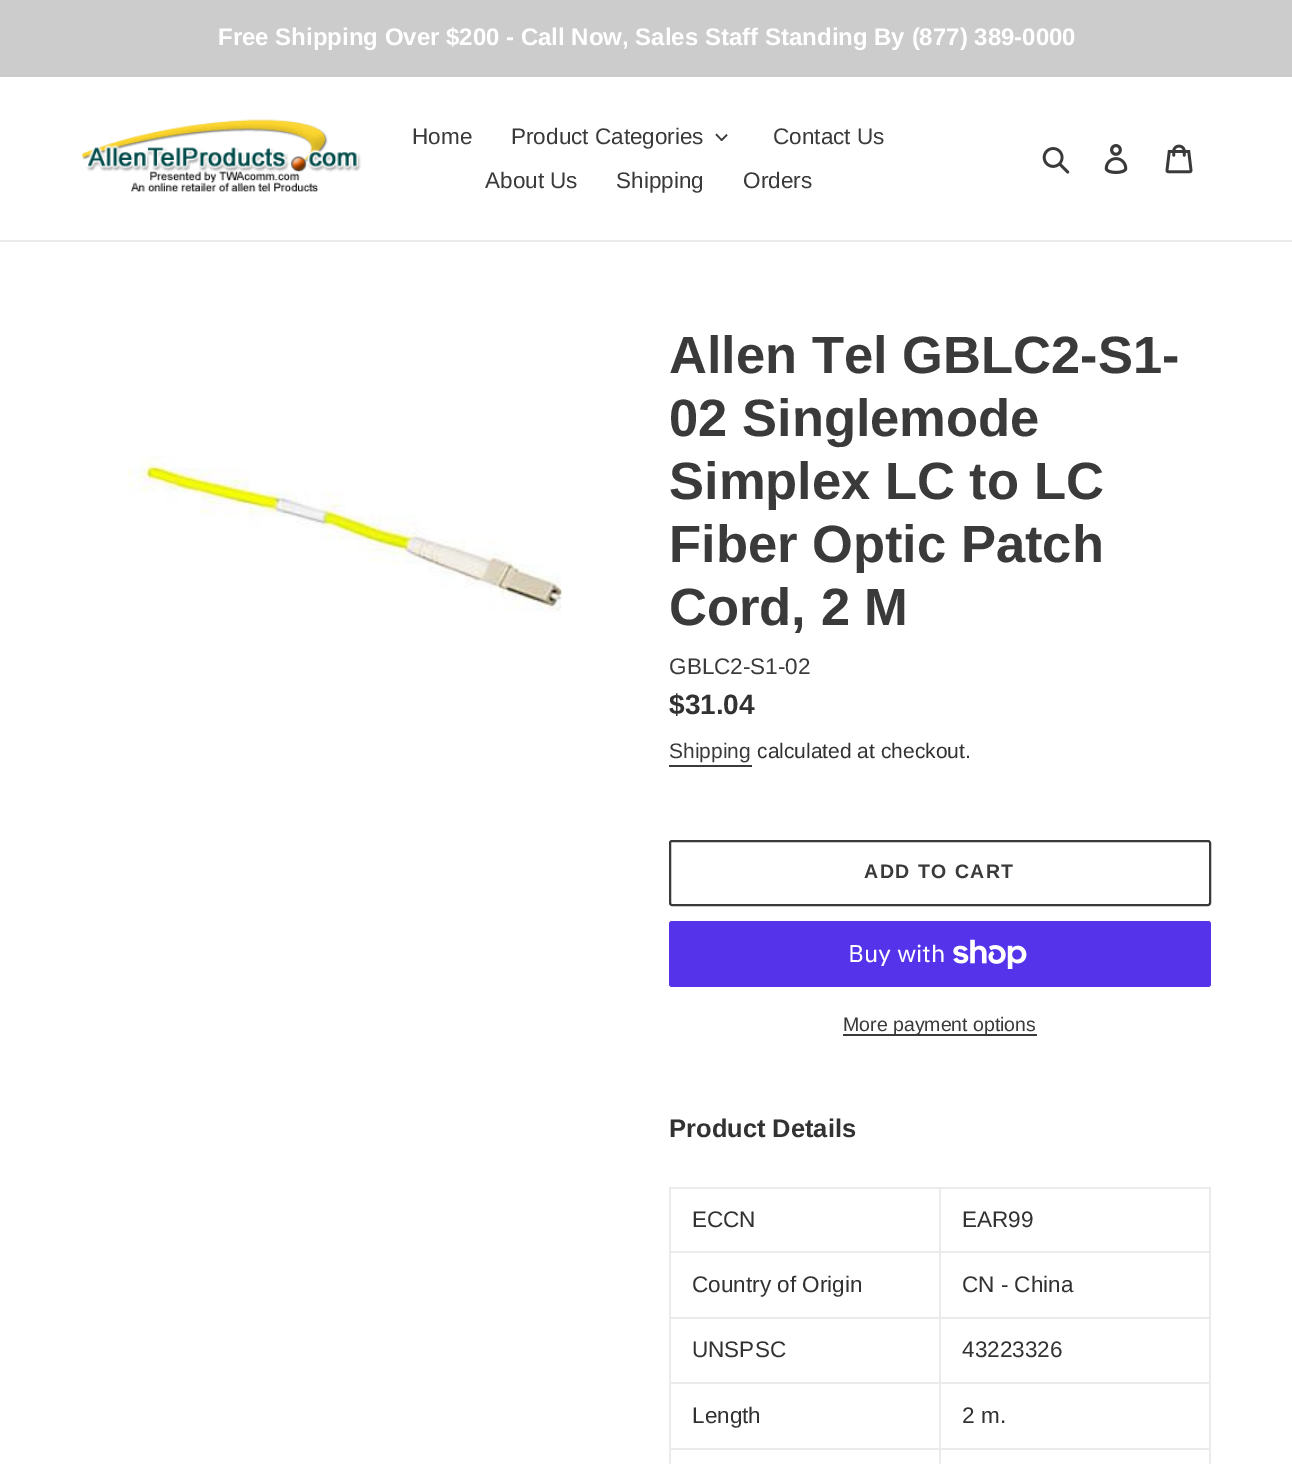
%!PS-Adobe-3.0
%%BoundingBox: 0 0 1292 1464
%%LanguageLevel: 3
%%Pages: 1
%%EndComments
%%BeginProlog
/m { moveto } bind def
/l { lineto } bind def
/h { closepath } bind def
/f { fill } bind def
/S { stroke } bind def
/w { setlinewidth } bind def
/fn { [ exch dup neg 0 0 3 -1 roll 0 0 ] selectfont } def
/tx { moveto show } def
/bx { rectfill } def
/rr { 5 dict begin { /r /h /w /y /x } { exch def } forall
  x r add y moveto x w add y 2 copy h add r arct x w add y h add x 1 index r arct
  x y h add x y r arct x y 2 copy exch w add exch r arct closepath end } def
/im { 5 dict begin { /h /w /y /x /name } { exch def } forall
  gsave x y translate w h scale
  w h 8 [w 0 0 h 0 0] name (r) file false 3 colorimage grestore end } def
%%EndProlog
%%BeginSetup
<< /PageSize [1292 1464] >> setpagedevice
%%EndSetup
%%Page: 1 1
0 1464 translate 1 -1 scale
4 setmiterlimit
1 setgray
0 0 1292 1464 bx
0.8 setgray
0 0 1292 77 bx
/LiberationSans-Bold 24 fn
1 setgray
(Free Shipping Over $200 - Call Now, Sales Staff Standing By \(877\) 389-0000) 218 45 tx
0.922 setgray
0 240 1292 2 bx
(image0.raw) 82 119 280 79 im
/LiberationSans-Regular 22.5 fn
0.227 setgray
(Home) 412 144 tx
(Product Categories) 511 144 tx
726.5 134 m 727.5 135.5 l 722 141 l 720.5 140 l h f
716.5 133.5 m 722.5 140 l 721.5 141 l 715.5 135 l h f
(Contact Us) 773 144 tx
(About Us) 485 188 tx
(Shipping) 616 188 tx
(Orders) 743 188 tx
(image1.raw) 1042 147 28 27 im
(image2.raw) 1104 144 24 30 im
(image3.raw) 1165 144 28 30 im
(image4.raw) 129 456 434 156 im
/LiberationSans-Bold 52.5 fn
(Allen Tel GBLC2-S1-) 669 373 tx
(02 Singlemode) 669 436 tx
(Simplex LC to LC) 669 499 tx
(Fiber Optic Patch) 669 562 tx
(Cord, 2 M) 669 625 tx
/LiberationSans-Regular 22.5 fn
(GBLC2-S1-02) 669 674 tx
/LiberationSans-Bold 28 fn
0.2 0.196 0.196 setrgbcolor
($31.04) 669 714 tx
/LiberationSans-Regular 21 fn
0.227 setgray
(Shipping) 669 758 tx
669 765 83 2 bx
0.2 0.196 0.196 setrgbcolor
(calculated at checkout.) 757 758 tx
0.227 setgray
2 w
670 841 540 64 2 rr S
/LiberationSans-Bold 19.5 fn
864 878 m 1.5 0 (ADD TO CART) ashow
0.329 0.2 0.922 setrgbcolor
669 921 542 66 3 rr f
/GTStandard-Regular 24 fn
1 setgray
(Buy with) 848 962 tx
(image5.raw) 953 939 74 30 im
0.227 setgray
843 1034 194 2 bx
/LiberationSans-Regular 19.5 fn
(More payment options) 843 1031 tx
/LiberationSans-Bold 25.5 fn
0.2 0.196 0.196 setrgbcolor
(Product Details) 669 1137 tx
0.922 setgray
939 1187 272 2 bx
939 1251 272 2 bx
939 1317 272 2 bx
939 1382 272 2 bx
939 1448 272 2 bx
939 1448 2 16 bx
669 1448 272 2 bx
939 1382 2 67 bx
669 1382 272 2 bx
939 1317 2 66 bx
669 1317 272 2 bx
939 1251 2 68 bx
669 1251 272 2 bx
939 1187 2 66 bx
669 1187 272 2 bx
669 1448 2 16 bx
669 1382 2 67 bx
669 1317 2 66 bx
669 1251 2 68 bx
669 1187 2 66 bx
/LiberationSans-Regular 22.5 fn
0.2 0.196 0.196 setrgbcolor
(ECCN) 692 1227 tx
0.922 setgray
1209 1448 2 16 bx
1209 1382 2 67 bx
1209 1317 2 66 bx
1209 1251 2 68 bx
1209 1187 2 66 bx
0.2 0.196 0.196 setrgbcolor
(EAR99) 962 1227 tx
(Country of Origin) 692 1292 tx
(CN - China) 962 1292 tx
(UNSPSC) 692 1357 tx
(43223326) 962 1357 tx
(Length) 692 1423 tx
(2 m.) 962 1423 tx
showpage
%%EOF
